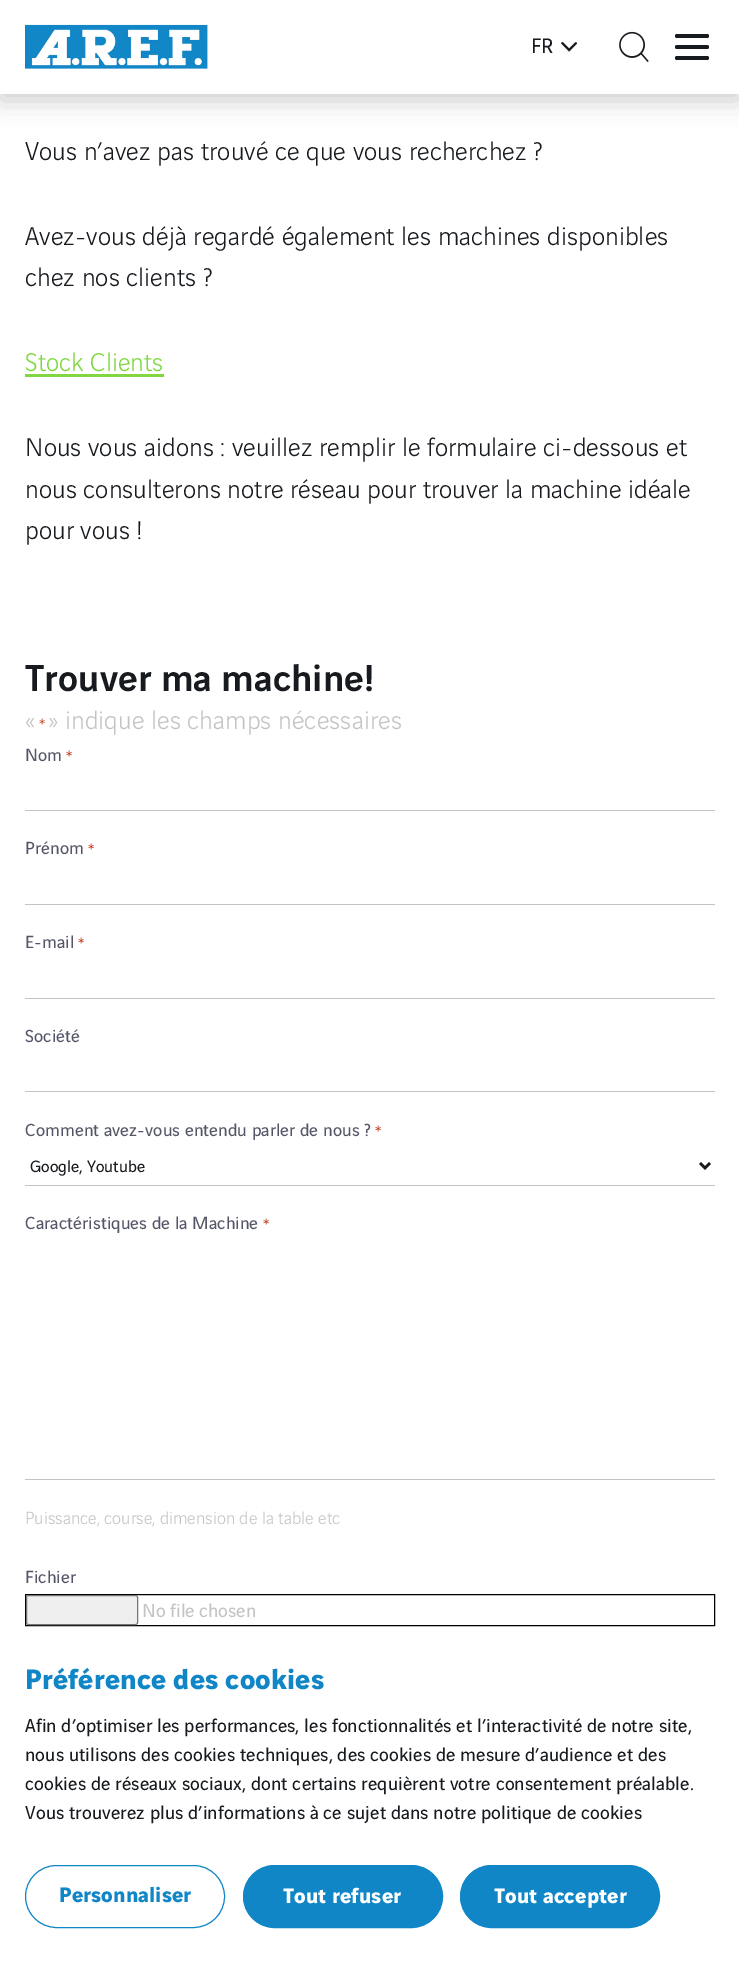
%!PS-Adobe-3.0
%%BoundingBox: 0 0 739 1973
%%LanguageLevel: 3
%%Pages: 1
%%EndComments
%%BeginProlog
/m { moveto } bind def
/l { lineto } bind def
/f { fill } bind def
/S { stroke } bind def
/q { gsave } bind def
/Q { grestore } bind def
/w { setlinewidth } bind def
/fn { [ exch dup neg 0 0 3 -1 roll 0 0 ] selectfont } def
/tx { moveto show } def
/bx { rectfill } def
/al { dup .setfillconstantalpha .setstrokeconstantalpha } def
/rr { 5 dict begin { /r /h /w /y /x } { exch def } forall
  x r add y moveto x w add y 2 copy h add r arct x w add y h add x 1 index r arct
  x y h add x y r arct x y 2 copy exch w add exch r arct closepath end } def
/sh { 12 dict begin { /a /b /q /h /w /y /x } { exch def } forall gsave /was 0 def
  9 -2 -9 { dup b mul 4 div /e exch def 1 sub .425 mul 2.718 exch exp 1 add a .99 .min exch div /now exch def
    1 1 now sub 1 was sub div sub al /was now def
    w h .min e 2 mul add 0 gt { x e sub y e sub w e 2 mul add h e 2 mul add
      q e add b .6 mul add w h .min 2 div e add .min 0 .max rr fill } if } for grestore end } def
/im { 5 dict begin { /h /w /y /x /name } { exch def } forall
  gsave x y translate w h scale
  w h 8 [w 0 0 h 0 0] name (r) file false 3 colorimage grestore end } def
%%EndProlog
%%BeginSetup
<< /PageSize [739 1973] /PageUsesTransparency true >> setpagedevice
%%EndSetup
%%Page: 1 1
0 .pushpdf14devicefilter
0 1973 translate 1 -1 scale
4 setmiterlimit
1 setgray
0 0 739 1973 bx
0 setgray
0 6 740 94 0 12.5 0.2 sh
1 setgray
0 0 739 94 bx
(image0.raw) 25 24 183 45 im
/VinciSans-Regular 22.5 fn
0.09 0.102 0.118 setrgbcolor
(FR) 531 53 tx
(image1.raw) 561 42 16 10 im
(image2.raw) 619 31 30 31 im
675 34 34 4 2 rr f
675 45 34 4 2 rr f
675 56 34 4 2 rr f
/VinciSans-Light 27.5 fn
25 160 m 0.12 0 (Vous n’avez pas trouvé ce que vous recherchez ?) ashow
25 245 m 0.12 0 (Avez-vous déjà regardé également les machines disponibles) ashow
25 286 m 0.12 0 (chez nos clients ?) ashow
0.506 0.843 0.259 setrgbcolor
25 371 m 0.12 0 (Stock Clients) ashow
25 374 139 3 bx
0.09 0.102 0.118 setrgbcolor
25 456 m 0.12 0 (Nous vous aidons : veuillez remplir le formulaire ci-dessous et) ashow
25 498 m 0.12 0 (nous consulterons notre réseau pour trouver la machine idéale) ashow
25 539 m 0.12 0 (pour vous !) ashow
/VinciSans-Medium 40 fn
25 691 m 0.12 0 (Trouver ma machine!) ashow
/VinciSans-Light 27.5 fn
0.769 setgray
25 729 m 0.12 0 («) ashow
/VinciSans-Light 16 fn
0.753 0.169 0.039 setrgbcolor
39 729 m 0.12 0 (*) ashow
/VinciSans-Light 27.5 fn
0.769 setgray
48 729 m 0.12 0 (» indique les champs nécessaires) ashow
/VinciSans-Regular 18.75 fn
0.329 0.333 0.404 setrgbcolor
25 761 m 0.12 0 (Nom) ashow
/VinciSans-Regular 16 fn
0.753 0.169 0.039 setrgbcolor
66 761 m 0.12 0 (*) ashow
0.769 setgray
25 810 690 1 bx
/VinciSans-Regular 18.75 fn
0.329 0.333 0.404 setrgbcolor
25 854 m 0.12 0 (Prénom) ashow
/VinciSans-Regular 16 fn
0.753 0.169 0.039 setrgbcolor
88 854 m 0.12 0 (*) ashow
0.769 setgray
25 904 690 1 bx
/VinciSans-Regular 18.75 fn
0.329 0.333 0.404 setrgbcolor
25 948 m 0.12 0 (E-mail) ashow
/VinciSans-Regular 16 fn
0.753 0.169 0.039 setrgbcolor
78 948 m 0.12 0 (*) ashow
0.769 setgray
25 998 690 1 bx
/VinciSans-Regular 18.75 fn
0.329 0.333 0.404 setrgbcolor
25 1042 m 0.12 0 (Société) ashow
0.769 setgray
25 1091 690 1 bx
0.329 0.333 0.404 setrgbcolor
25 1136 m 0.12 0 (Comment avez-vous entendu parler de nous ?) ashow
/VinciSans-Regular 16 fn
0.753 0.169 0.039 setrgbcolor
375 1136 m 0.12 0 (*) ashow
0.769 setgray
25 1185 690 1 bx
0.09 0.102 0.118 setrgbcolor
2.5 w
700 1163 m 705 1168 l 710 1163 l S
/VinciSans-Regular 17.5 fn
(Google, Youtube) 30 1172 tx
/VinciSans-Regular 18.75 fn
0.329 0.333 0.404 setrgbcolor
25 1229 m 0.12 0 (Caractéristiques de la Machine) ashow
/VinciSans-Regular 16 fn
0.753 0.169 0.039 setrgbcolor
263 1229 m 0.12 0 (*) ashow
0.769 setgray
25 1479 690 1 bx
/VinciSans-Light 18.75 fn
(Puissance, course, dimension de la table etc) 25 1524 tx
/VinciSans-Regular 18.75 fn
0.329 0.333 0.404 setrgbcolor
25 1583 m 0.12 0 (Fichier) ashow
0 setgray
1 w
25.5 1594.5 689 31 rectstroke
0.937 setgray
26.5 1595.5 111 29 2 rr q f Q
0.463 setgray
S
/VinciSans-Regular 20 fn
0.769 setgray
(No file chosen) 142 1617 tx
/VinciSans-Bold 30 fn
0.063 0.525 0.776 setrgbcolor
25 1689 m 0.12 0 (Préférence des cookies) ashow
/VinciSans-Regular 20 fn
0.09 0.102 0.118 setrgbcolor
25 1732 m 0.12 0 (Afin d’optimiser les performances, les fonctionnalités et l’interactivité de notre site,) ashow
25 1761 m 0.12 0 (nous utilisons des cookies techniques, des cookies de mesure d’audience et des) ashow
25 1790 m 0.12 0 (cookies de réseaux sociaux, dont certains requièrent votre consentement préalable.) ashow
25 1819 m 0.12 0 (Vous trouverez plus d’informations à ce sujet dans notre politique de cookies) ashow
0.063 0.525 0.776 setrgbcolor
25.5 1865.5 199 62 31 rr S
/VinciSans-Bold 22.5 fn
59 1902 m 0.12 0 (Personnaliser) ashow
243.5 1865.5 199 62 31 rr q f Q
S
1 setgray
283 1903 m 0.12 0 (Tout refuser) ashow
0.063 0.525 0.776 setrgbcolor
460.5 1865.5 199 62 31 rr q f Q
S
1 setgray
494 1903 m 0.12 0 (Tout accepter) ashow
.poppdf14devicefilter showpage
%%EOF
